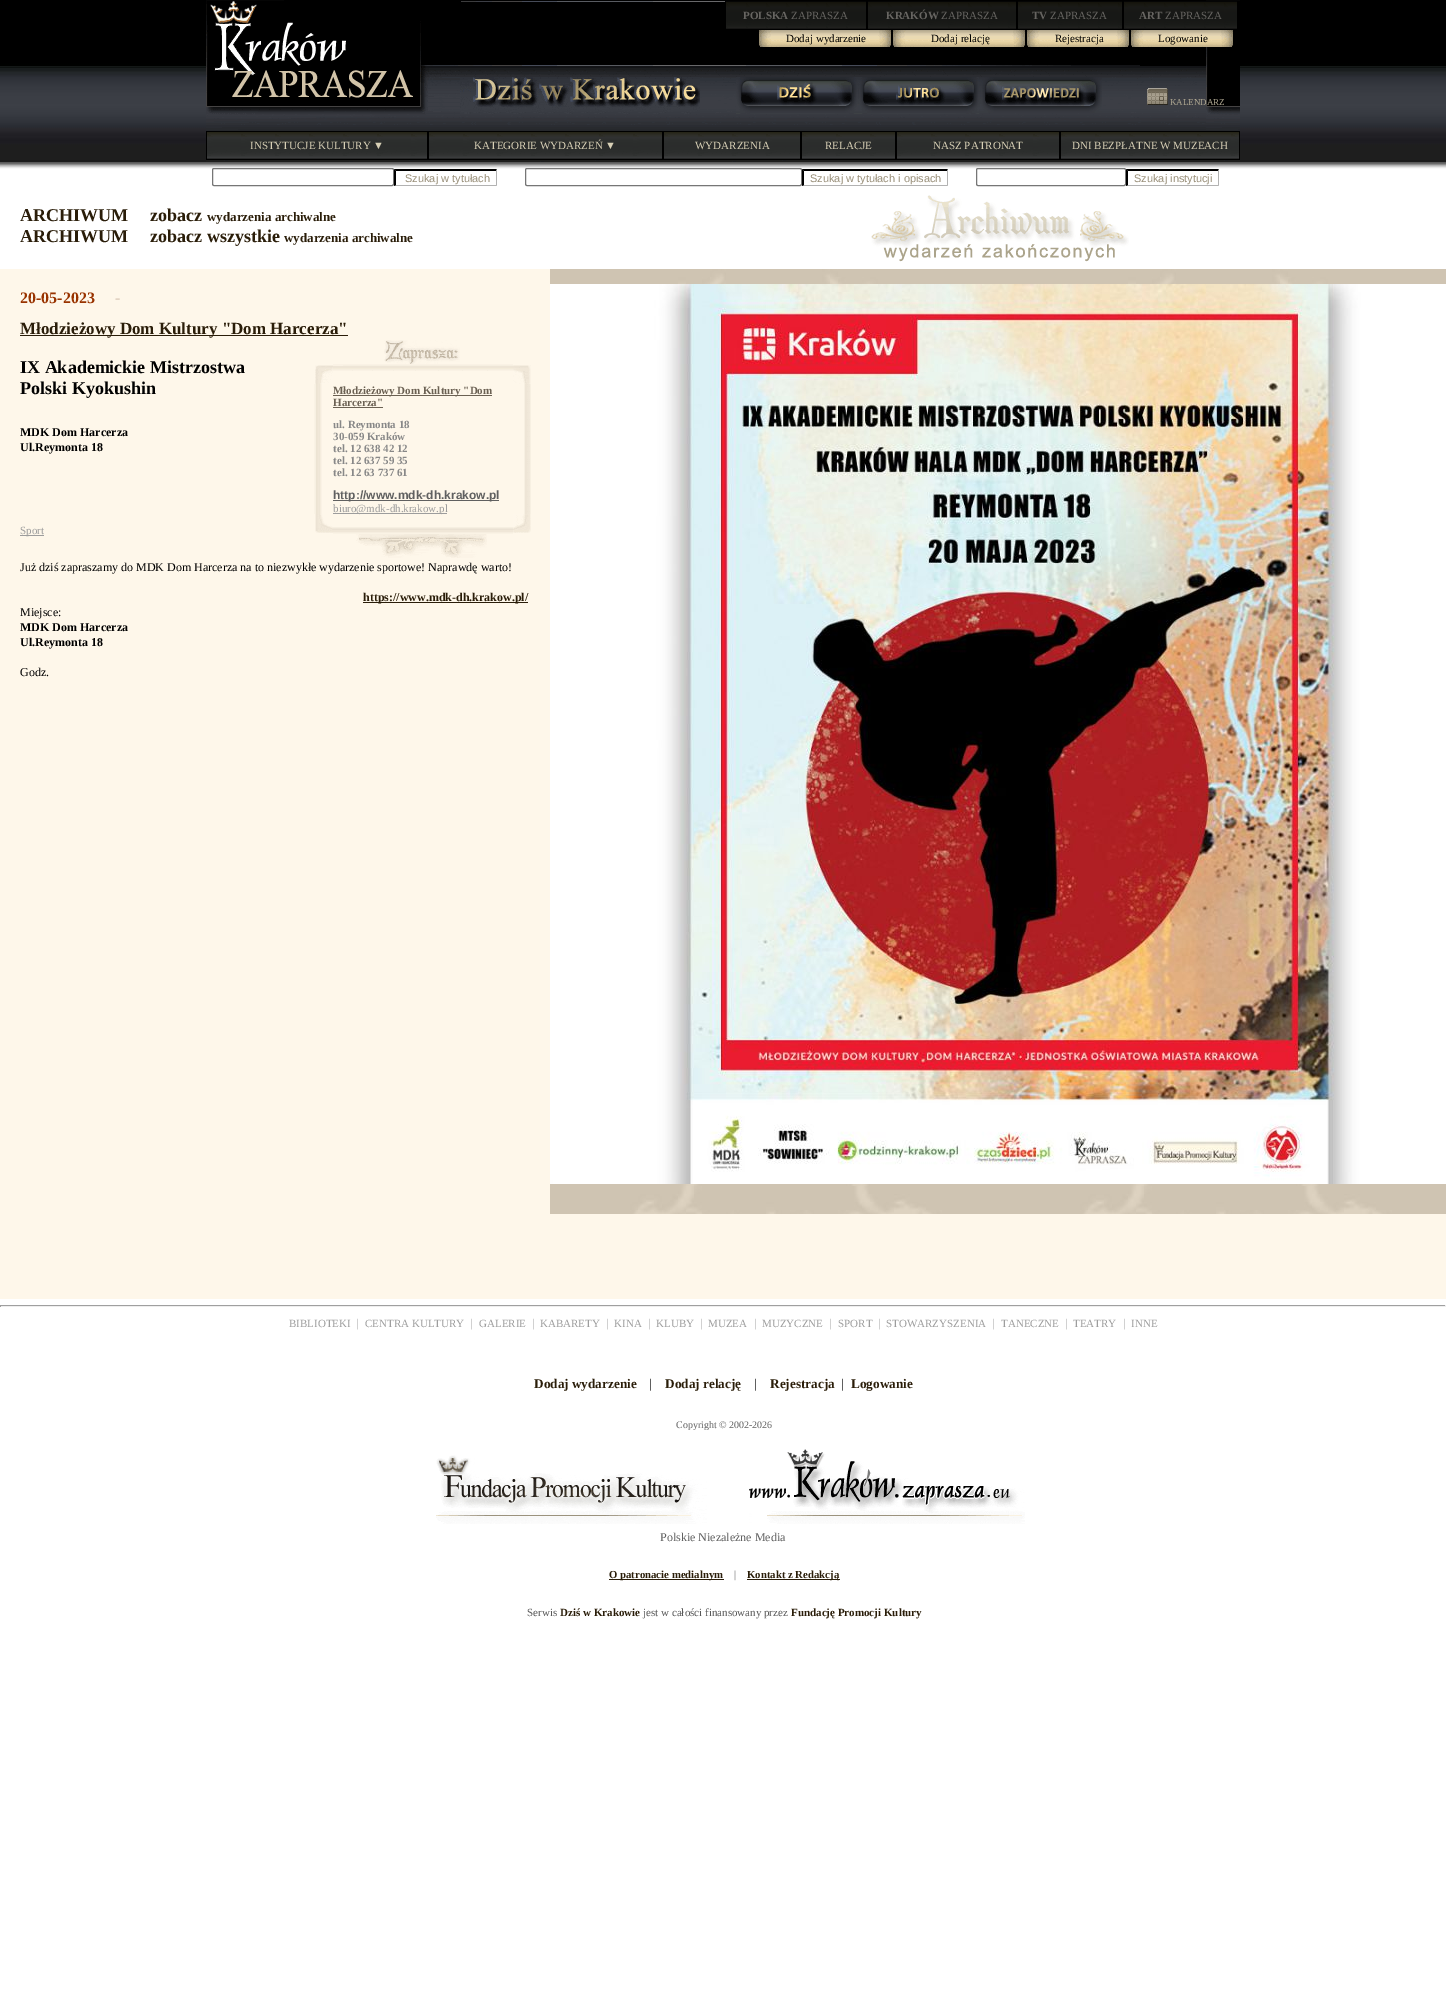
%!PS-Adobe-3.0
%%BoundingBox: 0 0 1446 1998
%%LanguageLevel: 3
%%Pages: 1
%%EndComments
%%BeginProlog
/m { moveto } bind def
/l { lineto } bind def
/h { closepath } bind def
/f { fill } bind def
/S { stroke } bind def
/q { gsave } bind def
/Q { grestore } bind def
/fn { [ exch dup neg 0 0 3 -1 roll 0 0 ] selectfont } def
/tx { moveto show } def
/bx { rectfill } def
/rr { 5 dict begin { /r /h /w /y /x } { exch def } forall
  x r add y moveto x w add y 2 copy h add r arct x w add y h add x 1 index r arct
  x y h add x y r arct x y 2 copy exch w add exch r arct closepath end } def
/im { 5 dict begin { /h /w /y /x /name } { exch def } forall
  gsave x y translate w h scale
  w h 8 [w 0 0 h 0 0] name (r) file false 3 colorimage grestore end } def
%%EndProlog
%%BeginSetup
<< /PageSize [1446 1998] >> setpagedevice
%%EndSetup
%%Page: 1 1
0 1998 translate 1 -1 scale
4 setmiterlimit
1 setgray
0 0 1446 1998 bx
(image0.raw) 0 0 1446 169 im
(image1.raw) 206 0 1034 162 im
(image2.raw) 206 1 220 113 im
(image3.raw) 726 1 140 28 im
0 setgray
866 1 2 1 bx
725 1 1 1 bx
/LiberationSerif-Bold 11 fn
0.404 0.396 0.38 setrgbcolor
(POLSKA) 743 19 tx
/LiberationSerif-Regular 11 fn
(ZAPRASZA) 791 19 tx
(image4.raw) 868 1 148 28 im
0 setgray
1016 1 2 1 bx
/LiberationSerif-Bold 11 fn
0.404 0.396 0.38 setrgbcolor
(KRAKÓW) 886 19 tx
/LiberationSerif-Regular 11 fn
(ZAPRASZA) 941 19 tx
(image5.raw) 1018 1 104 28 im
0 setgray
1122 1 2 1 bx
/LiberationSerif-Bold 11 fn
0.404 0.396 0.38 setrgbcolor
(TV) 1032 19 tx
/LiberationSerif-Regular 11 fn
(ZAPRASZA) 1050 19 tx
(image6.raw) 1124 1 113 28 im
0 setgray
1206 29 2 1 bx
/LiberationSerif-Bold 11 fn
0.404 0.396 0.38 setrgbcolor
(ART) 1139 19 tx
/LiberationSerif-Regular 11 fn
(ZAPRASZA) 1165 19 tx
(image7.raw) 759 30 132 17 im
0 setgray
(Dodaj wydarzenie) 786 42 tx
(image7.raw) 893 30 132 17 im
(Dodaj relację) 931 42 tx
(image8.raw) 1027 30 102 17 im
(Rejestracja) 1055 42 tx
(image8.raw) 1131 30 102 17 im
(Logowanie) 1158 42 tx
(image9.raw) 460 77 240 37 im
(image10.raw) 736 77 122 37 im
(image11.raw) 858 77 122 37 im
(image12.raw) 980 77 122 36 im
(image13.raw) 1147 88 21 17 im
/LiberationSerif-Regular 9 fn
0.694 0.663 0.576 setrgbcolor
(KALENDARZ) 1170 105 tx
(image14.raw) 207 131 220 28 im
0 setgray
427 131 1 29 bx
206 159 222 1 bx
206 131 1 29 bx
/LiberationSerif-Regular 11 fn
0.847 0.816 0.714 setrgbcolor
(INSTYTUCJE KULTURY ▼) 250 149 tx
(image15.raw) 429 131 233 28 im
0 setgray
662 131 1 29 bx
428 159 235 1 bx
428 131 1 29 bx
0.847 0.816 0.714 setrgbcolor
(KATEGORIE WYDARZEŃ ▼) 474 149 tx
(image16.raw) 664 131 136 28 im
0 setgray
800 131 1 29 bx
663 159 138 1 bx
663 131 1 29 bx
0.847 0.816 0.714 setrgbcolor
(WYDARZENIA) 695 149 tx
(image17.raw) 802 131 93 28 im
0 setgray
895 131 1 29 bx
801 159 95 1 bx
801 131 1 29 bx
0.847 0.816 0.714 setrgbcolor
(RELACJE) 825 149 tx
(image18.raw) 897 131 162 28 im
0 setgray
1059 131 1 29 bx
896 159 164 1 bx
896 131 1 29 bx
0.847 0.816 0.714 setrgbcolor
(NASZ PATRONAT) 933 149 tx
(image19.raw) 1061 131 178 28 im
0 setgray
1239 131 1 29 bx
1060 159 180 1 bx
1060 131 1 29 bx
0.847 0.816 0.714 setrgbcolor
(DNI BEZPŁATNE W MUZEACH) 1072 149 tx
1 setgray
212.5 168.5 181 17 1.5 rr q f Q
0.463 setgray
S
0 setgray
394 169 m 497 169 l 496 171 l 396 171 l h f
0.698 setgray
497 169 m 497 186 l 496 185 l 496 171 l h f
497 186 m 394 186 l 396 185 l 496 185 l h f
0 setgray
394 186 m 394 169 l 396 171 l 396 185 l h f
/LiberationSans-Regular 11 fn
0.6 0.561 0.475 setrgbcolor
(Szukaj w tytułach) 405 182 tx
1 setgray
525.5 168.5 276 17 1.5 rr q f Q
0.463 setgray
S
0 setgray
802 169 m 948 169 l 947 171 l 804 171 l h f
0.698 setgray
948 169 m 948 186 l 947 185 l 947 171 l h f
948 186 m 802 186 l 804 185 l 947 185 l h f
0 setgray
802 186 m 802 169 l 804 171 l 804 185 l h f
0.6 0.561 0.475 setrgbcolor
(Szukaj w tytułach i opisach) 810 182 tx
1 setgray
976.5 168.5 149 17 1.5 rr q f Q
0.463 setgray
S
0 setgray
1126 169 m 1219 169 l 1218 171 l 1128 171 l h f
0.698 setgray
1219 169 m 1219 186 l 1218 185 l 1218 171 l h f
1219 186 m 1126 186 l 1128 185 l 1218 185 l h f
0 setgray
1126 186 m 1126 169 l 1128 171 l 1128 185 l h f
0.6 0.561 0.475 setrgbcolor
(Szukaj instytucji) 1134 182 tx
0.996 0.969 0.918 setrgbcolor
0 269 1446 1030 bx
/LiberationSerif-Bold 18 fn
0.165 0.114 0.035 setrgbcolor
(ARCHIWUM     zobacz) 20 221 tx
/LiberationSerif-Bold 13 fn
(wydarzenia archiwalne) 207 221 tx
/LiberationSerif-Bold 18 fn
(ARCHIWUM     zobacz wszystkie) 20 242 tx
/LiberationSerif-Bold 13 fn
(wydarzenia archiwalne) 284 242 tx
(image20.raw) 871 195 258 67 im
/LiberationSerif-Bold 16 fn
0.6 0.2 0 setrgbcolor
(20-05-2023) 20 303 tx
/LiberationSerif-Regular 16 fn
0.851 0.784 0.718 setrgbcolor
(-) 115 303 tx
0.165 0.114 0.035 setrgbcolor
20 335 328 1 bx
/LiberationSerif-Bold 17 fn
(Młodzieżowy Dom Kultury "Dom Harcerza") 20 334 tx
/LiberationSerif-Bold 18 fn
0 setgray
(IX Akademickie Mistrzostwa) 20 373 tx
(Polski Kyokushin) 20 394 tx
(image21.raw) 384 340 76 24 im
(image22.raw) 315 365 18 19 im
(image23.raw) 333 364 180 7 im
(image24.raw) 513 365 18 19 im
(image25.raw) 314 384 8 130 im
0.42 0.38 0.325 setrgbcolor
333 395 159 1 bx
/LiberationSerif-Bold 11 fn
(Młodzieżowy Dom Kultury "Dom) 333 394 tx
(Harcerza") 333 406 tx
333 407 50 1 bx
0.533 setgray
(ul. Reymonta 18) 333 428 tx
(30-059 Kraków) 333 440 tx
(tel. 12 638 42 12) 333 452 tx
(tel. 12 637 59 35) 333 464 tx
(tel. 12 63 737 61) 333 476 tx
0.376 setgray
333 500 166 1 bx
/LiberationSans-Bold 12 fn
(http://www.mdk-dh.krakow.pl) 333 499 tx
0.616 setgray
333 513 114 1 bx
/LiberationSerif-Regular 11 fn
(biuro@mdk-dh.krakow.pl) 333 512 tx
(image26.raw) 524 384 7 130 im
(image27.raw) 315 514 18 19 im
(image28.raw) 333 527 180 7 im
0.996 0.969 0.918 setrgbcolor
360 514 81 1 bx
(image29.raw) 513 514 18 19 im
(image30.raw) 356 534 131 24 im
/LiberationSerif-Bold 12 fn
0 setgray
(MDK Dom Harcerza) 20 436 tx
(Ul.Reymonta 18) 20 451 tx
0.616 setgray
20 535 24 1 bx
/LiberationSerif-Regular 11 fn
(Sport) 20 534 tx
/LiberationSerif-Regular 12 fn
0 setgray
(Już dziś zapraszamy do MDK Dom Harcerza na to niezwykłe wydarzenie sportowe! Naprawdę warto!) 20 571 tx
0.165 0.114 0.035 setrgbcolor
363 602 165 1 bx
/LiberationSerif-Bold 12 fn
(https://www.mdk-dh.krakow.pl/) 363 601 tx
/LiberationSerif-Regular 12 fn
0 setgray
(Miejsce:) 20 616 tx
/LiberationSerif-Bold 12 fn
(MDK Dom Harcerza) 20 631 tx
(Ul.Reymonta 18) 20 646 tx
/LiberationSerif-Regular 12 fn
(Godz.) 20 676 tx
(image31.raw) 550 269 896 945 im
(image32.raw) 550 284 896 900 im
0.624 setgray
0 1305 1446 1 bx
0.933 setgray
1445 1305 1 2 bx
0 1306 1446 1 bx
0.624 setgray
0 1305 1 2 bx
/LiberationSerif-Regular 11 fn
0.616 setgray
(BIBLIOTEKI) 289 1327 tx
/LiberationSerif-Regular 12 fn
0.667 setgray
(|) 356 1327 tx
/LiberationSerif-Regular 11 fn
0.616 setgray
(CENTRA KULTURY) 365 1327 tx
/LiberationSerif-Regular 12 fn
0.667 setgray
(|) 470 1327 tx
/LiberationSerif-Regular 11 fn
0.616 setgray
(GALERIE) 479 1327 tx
/LiberationSerif-Regular 12 fn
0.667 setgray
(|) 532 1327 tx
/LiberationSerif-Regular 11 fn
0.616 setgray
(KABARETY) 540 1327 tx
/LiberationSerif-Regular 12 fn
0.667 setgray
(|) 606 1327 tx
/LiberationSerif-Regular 11 fn
0.616 setgray
(KINA) 614 1327 tx
/LiberationSerif-Regular 12 fn
0.667 setgray
(|) 648 1327 tx
/LiberationSerif-Regular 11 fn
0.616 setgray
(KLUBY) 656 1327 tx
/LiberationSerif-Regular 12 fn
0.667 setgray
(|) 700 1327 tx
/LiberationSerif-Regular 11 fn
0.616 setgray
(MUZEA) 708 1327 tx
/LiberationSerif-Regular 12 fn
0.667 setgray
(|) 754 1327 tx
/LiberationSerif-Regular 11 fn
0.616 setgray
(MUZYCZNE) 762 1327 tx
/LiberationSerif-Regular 12 fn
0.667 setgray
(|) 829 1327 tx
/LiberationSerif-Regular 11 fn
0.616 setgray
(SPORT) 838 1327 tx
/LiberationSerif-Regular 12 fn
0.667 setgray
(|) 878 1327 tx
/LiberationSerif-Regular 11 fn
0.616 setgray
(STOWARZYSZENIA) 886 1327 tx
/LiberationSerif-Regular 12 fn
0.667 setgray
(|) 992 1327 tx
/LiberationSerif-Regular 11 fn
0.616 setgray
(TANECZNE) 1001 1327 tx
/LiberationSerif-Regular 12 fn
0.667 setgray
(|) 1065 1327 tx
/LiberationSerif-Regular 11 fn
0.616 setgray
(TEATRY) 1073 1327 tx
/LiberationSerif-Regular 12 fn
0.667 setgray
(|) 1123 1327 tx
/LiberationSerif-Regular 11 fn
0.616 setgray
(INNE) 1131 1327 tx
/LiberationSerif-Bold 13.25 fn
0.165 0.114 0.035 setrgbcolor
(Dodaj wydarzenie) 534 1388 tx
0.376 setgray
(|) 649 1388 tx
0.165 0.114 0.035 setrgbcolor
(Dodaj relację) 665 1388 tx
0.376 setgray
(|) 754 1388 tx
0.165 0.114 0.035 setrgbcolor
(Rejestracja) 770 1388 tx
0.376 setgray
(|) 841 1388 tx
0.165 0.114 0.035 setrgbcolor
(Logowanie) 851 1388 tx
/LiberationSerif-Regular 10 fn
0.376 setgray
(Copyright © 2002-2026) 676 1428 tx
(image33.raw) 436 1430 271 94 im
(image34.raw) 749 1449 276 75 im
/LiberationSerif-Regular 12 fn
(Polskie Niezależne Media) 660 1541 tx
0.165 0.114 0.035 setrgbcolor
609 1579 115 1 bx
/LiberationSerif-Bold 10.75 fn
(O patronacie medialnym) 609 1578 tx
/LiberationSerif-Regular 10.75 fn
0.376 setgray
(|) 734 1578 tx
0.165 0.114 0.035 setrgbcolor
747 1579 93 1 bx
/LiberationSerif-Bold 10.75 fn
(Kontakt z Redakcją) 747 1578 tx
/LiberationSerif-Regular 11 fn
0.345 setgray
(Serwis) 527 1616 tx
/LiberationSerif-Bold 11 fn
0.165 0.114 0.035 setrgbcolor
(Dziś w Krakowie) 560 1616 tx
/LiberationSerif-Regular 11 fn
0.345 setgray
(jest w całości finansowany przez) 643 1616 tx
/LiberationSerif-Bold 11 fn
0.165 0.114 0.035 setrgbcolor
(Fundację Promocji Kultury) 791 1616 tx
showpage
%%EOF
